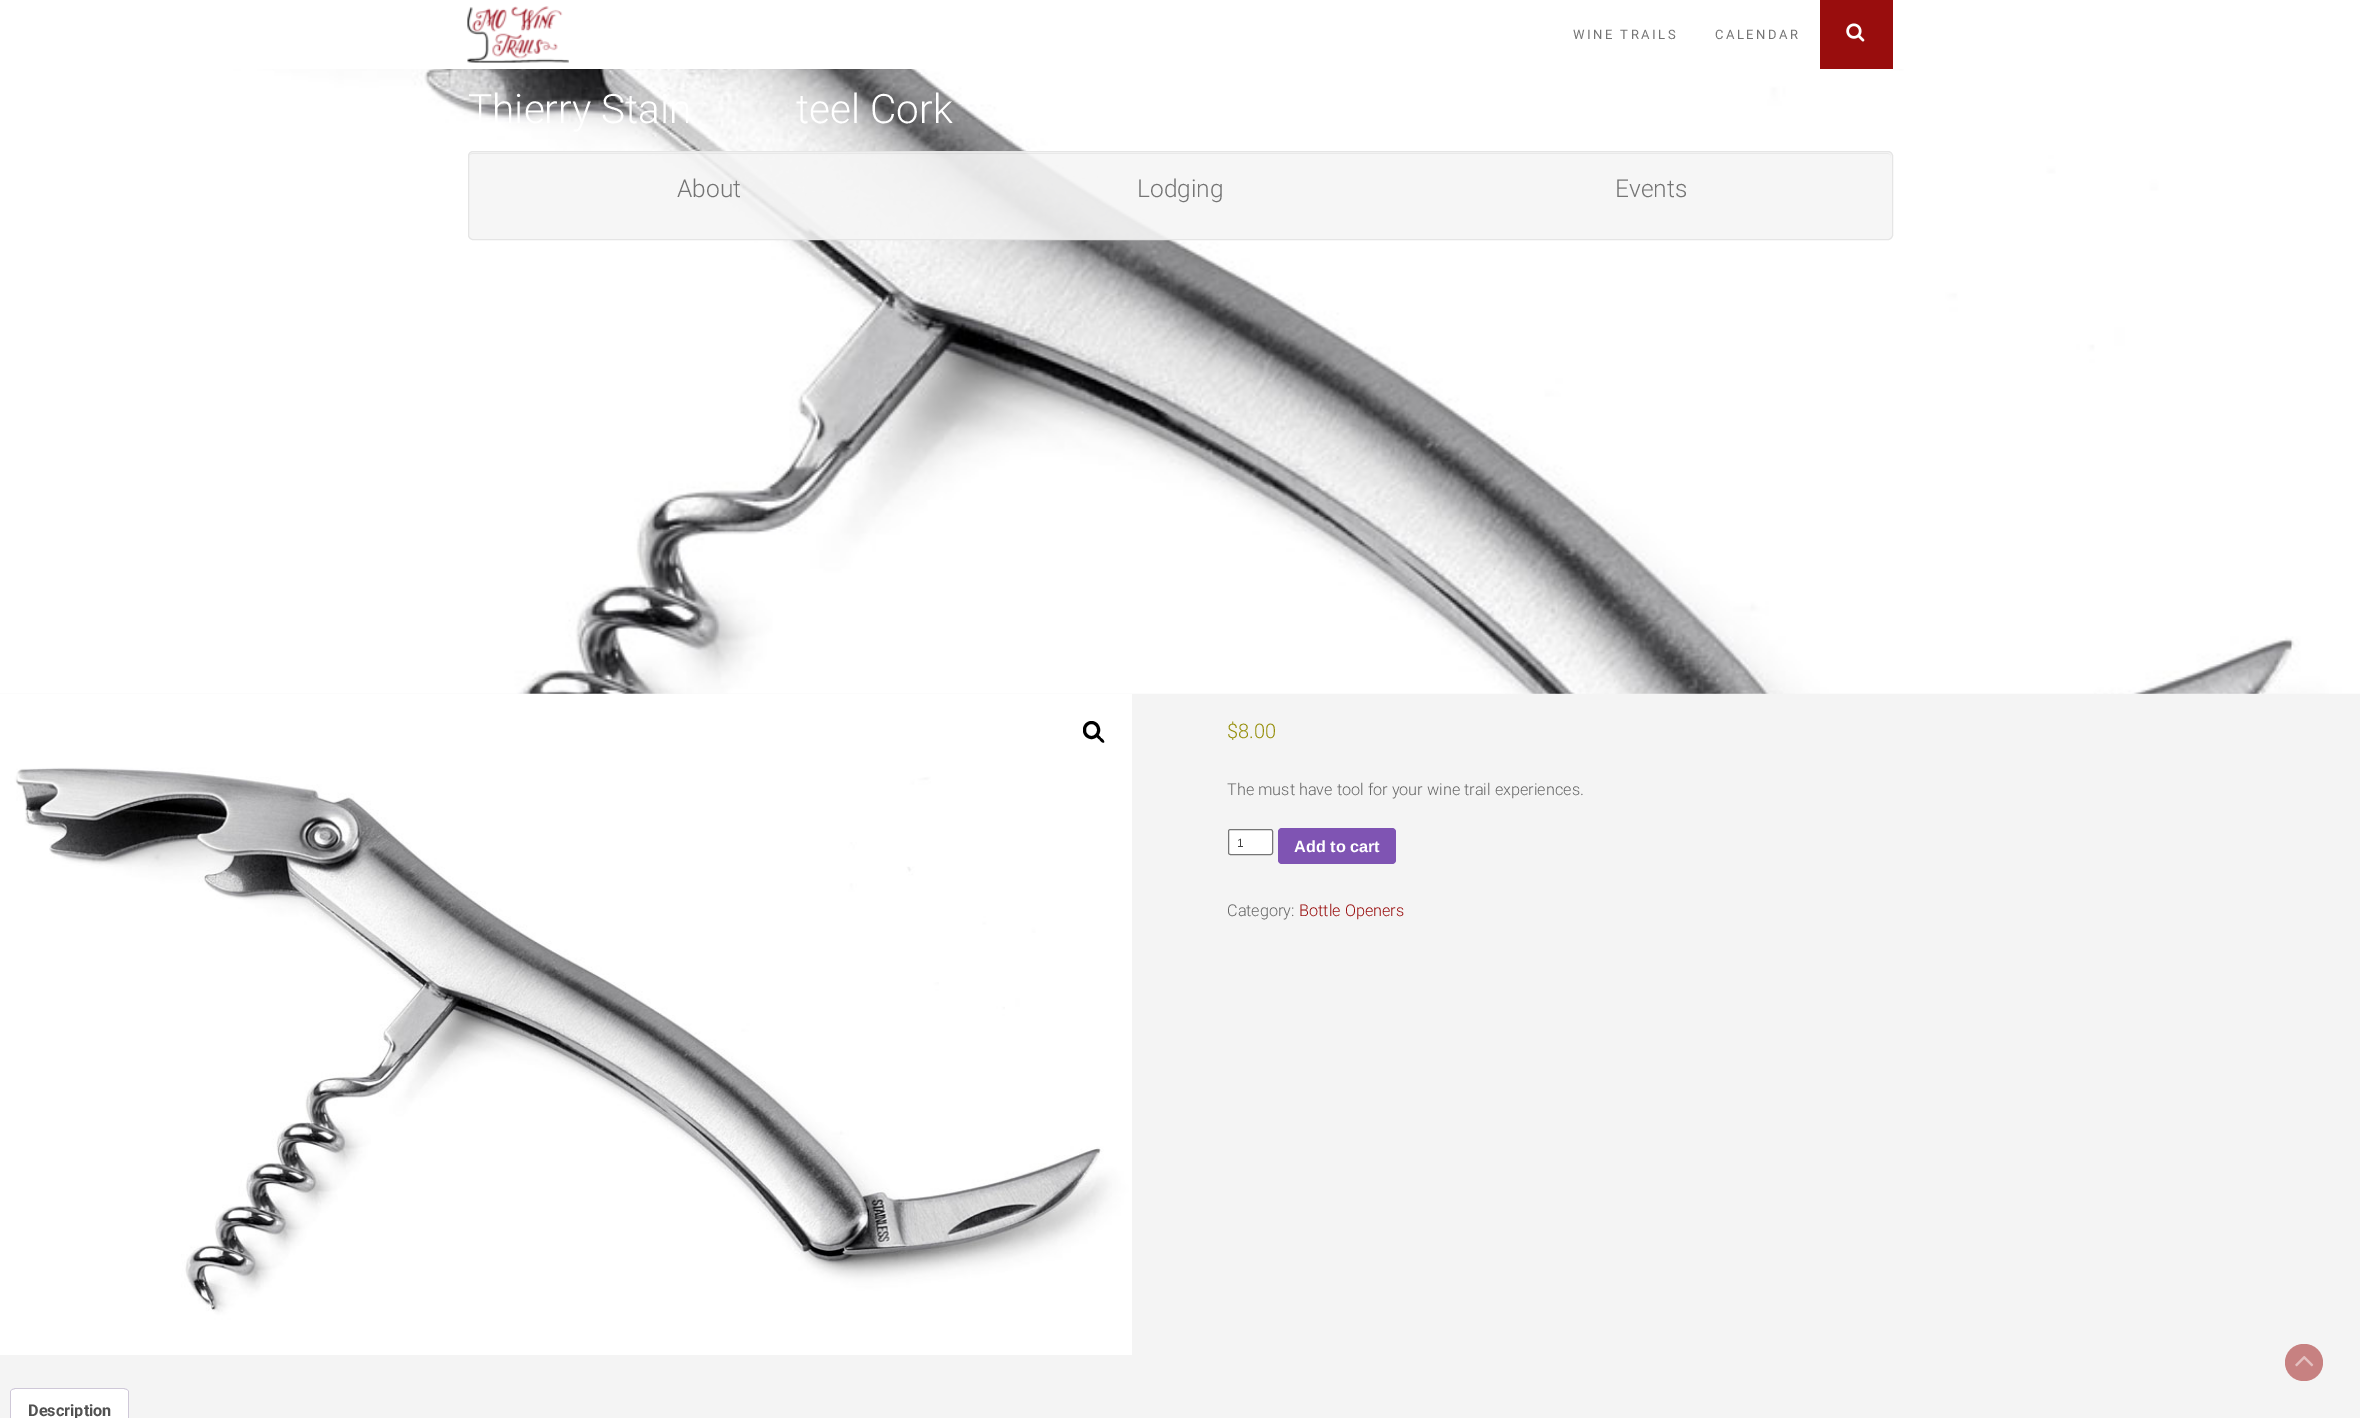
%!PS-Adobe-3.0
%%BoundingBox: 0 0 2360 1418
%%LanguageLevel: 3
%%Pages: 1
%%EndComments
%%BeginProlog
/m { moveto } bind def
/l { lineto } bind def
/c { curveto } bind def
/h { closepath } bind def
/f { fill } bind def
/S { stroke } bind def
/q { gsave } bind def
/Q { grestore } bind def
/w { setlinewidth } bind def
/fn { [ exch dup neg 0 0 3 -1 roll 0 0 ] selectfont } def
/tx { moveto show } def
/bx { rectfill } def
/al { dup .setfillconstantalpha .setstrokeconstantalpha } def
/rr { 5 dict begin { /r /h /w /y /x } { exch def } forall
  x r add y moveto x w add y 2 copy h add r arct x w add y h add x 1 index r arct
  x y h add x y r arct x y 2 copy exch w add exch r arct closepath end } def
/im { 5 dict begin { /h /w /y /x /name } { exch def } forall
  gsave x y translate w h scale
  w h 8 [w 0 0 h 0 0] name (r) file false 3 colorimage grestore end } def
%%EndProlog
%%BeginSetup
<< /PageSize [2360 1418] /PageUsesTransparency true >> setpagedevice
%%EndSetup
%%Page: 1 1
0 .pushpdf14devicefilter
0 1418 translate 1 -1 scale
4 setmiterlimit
0.957 setgray
0 0 2360 1418 bx
1 setgray
0 0 2360 69 bx
(image0.raw) 467 6 102 57 im
/Roboto-Regular 13 fn
0.455 setgray
1573 39 m 2.5 0 (WINE TRAILS) ashow
1715 39 m 2.5 0 (CALENDAR) ashow
0.6 0.051 0.051 setrgbcolor
1820 0 73 69 bx
(image1.raw) 1846 23 19 19 im
(image2.raw) 0 69 2360 625 im
/Roboto-Light 40.5 fn
1 setgray
(Thierry Stain) 468 123 tx
(teel Cork) 796 123 tx
0.9 al
0.961 setgray
468 151 1425 89 5 rr f
0.05 al
0 setgray
472 154 m 1888 154 l 1890 154 1891 155 1891 158 c 1891 157 l 1891 155 1889 153 1887 153 c 473 153 l 471 153 469 155 469 157 c 469 158 l 469 155 470 154 472 154 c h f
0.9 al
0.89 setgray
468.5 151.5 1424 88 4.5 rr S
/Roboto-Light 24.5 fn
1 al
0.455 setgray
(About) 677 197 tx
(Lodging) 1137 197 tx
(Events) 1615 197 tx
(image3.raw) 0 693 1132 662 im
0 setgray
3 w
1084.5 722.5 14 15 7 rr S
1097 735 m 1098 734 1100.5 737 1101 738 c 1102 738.5 1105 741 1104 742.5 c 1102.5 743.5 1100 740.5 1099.5 739.5 c 1098.5 739 1095.5 736.5 1097 735 c h f
/Roboto-Light 20 fn
0.584 0.557 0.035 setrgbcolor
($8.00) 1227 738 tx
/Roboto-Light 16.25 fn
0.4 setgray
(The must have tool for your wine trail experiences.) 1227 795 tx
1 setgray
1228.5 829.5 44 25 2 rr q f Q
0.463 setgray
1 w
S
/LiberationSans-Regular 12 fn
0.251 setgray
(1) 1237 847 tx
0.498 0.329 0.702 setrgbcolor
1278 828 118 36 4 rr f
/LiberationSans-Bold 16.25 fn
1 setgray
(Add to cart) 1294 852 tx
/Roboto-Light 16.25 fn
0.4 setgray
(Category:) 1227 916 tx
0.6 0.051 0.051 setrgbcolor
(Bottle Openers) 1299 916 tx
1 setgray
15 1388 m 124 1388 l 127 1388 129 1390 129 1393 c 129 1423 l 10 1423 l 10 1393 l 10 1390 12 1388 15 1388 c h f
0.812 0.784 0.847 setrgbcolor
15 1388 m 12 1389 l 12 1390 l 15 1389 l 124 1389 l 127 1390 l 127 1389 l 124 1388 l h f
127 1389 m 129 1391 l 129 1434 l 127 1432 l 128 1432 l 128 1391 l 127 1390 l h f
10 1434 m 12 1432 l 11 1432 l 11 1391 l 12 1390 l 12 1389 l 11 1390 10 1391 10 1392 c h f
/Roboto-Bold 16.25 fn
0.318 setgray
(Description) 28 1416 tx
0.78 0.506 0.506 setrgbcolor
2285 1344 38 37 18.5 rr f
(image4.raw) 2295 1356 19 11 im
.poppdf14devicefilter showpage
%%EOF
